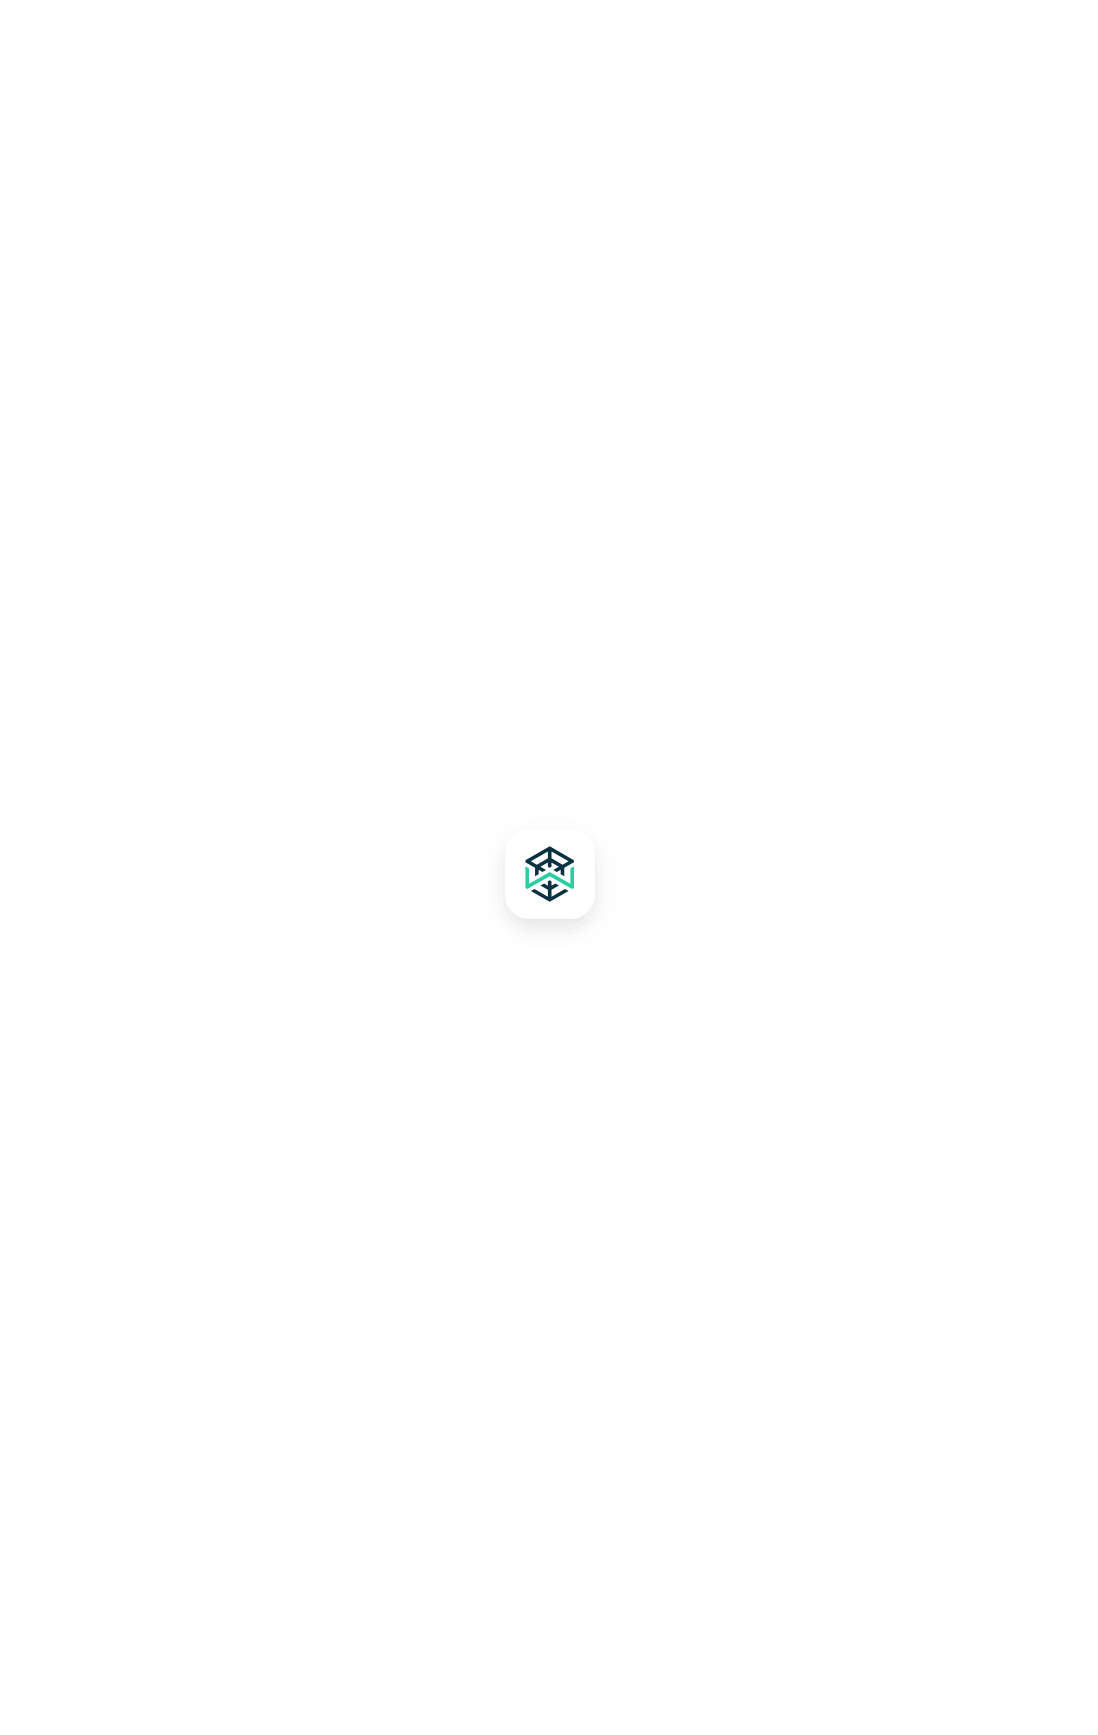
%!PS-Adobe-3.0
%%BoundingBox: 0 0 1098 1735
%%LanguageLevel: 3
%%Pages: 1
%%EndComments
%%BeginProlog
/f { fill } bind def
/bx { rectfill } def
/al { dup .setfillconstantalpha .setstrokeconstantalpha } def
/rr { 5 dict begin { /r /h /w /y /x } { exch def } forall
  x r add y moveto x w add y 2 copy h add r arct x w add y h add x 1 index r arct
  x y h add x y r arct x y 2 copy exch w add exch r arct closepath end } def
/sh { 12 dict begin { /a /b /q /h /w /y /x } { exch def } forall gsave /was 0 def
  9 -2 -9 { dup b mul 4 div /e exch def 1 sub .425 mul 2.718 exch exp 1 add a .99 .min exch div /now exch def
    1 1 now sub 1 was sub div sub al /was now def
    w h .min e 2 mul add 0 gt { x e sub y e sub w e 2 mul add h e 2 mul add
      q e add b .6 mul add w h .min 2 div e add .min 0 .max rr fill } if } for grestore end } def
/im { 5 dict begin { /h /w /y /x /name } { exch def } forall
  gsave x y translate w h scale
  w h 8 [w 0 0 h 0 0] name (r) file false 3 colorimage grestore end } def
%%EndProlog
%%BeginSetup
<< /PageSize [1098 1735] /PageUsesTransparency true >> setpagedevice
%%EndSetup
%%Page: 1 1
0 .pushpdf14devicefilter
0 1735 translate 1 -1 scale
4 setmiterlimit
1 setgray
0 0 1098 1735 bx
0 setgray
505 838 90 90 25 9.5 0.1 sh
1 setgray
505 829 90 90 25 rr f
(image0.raw) 525 846 49 56 im
.poppdf14devicefilter showpage
%%EOF
